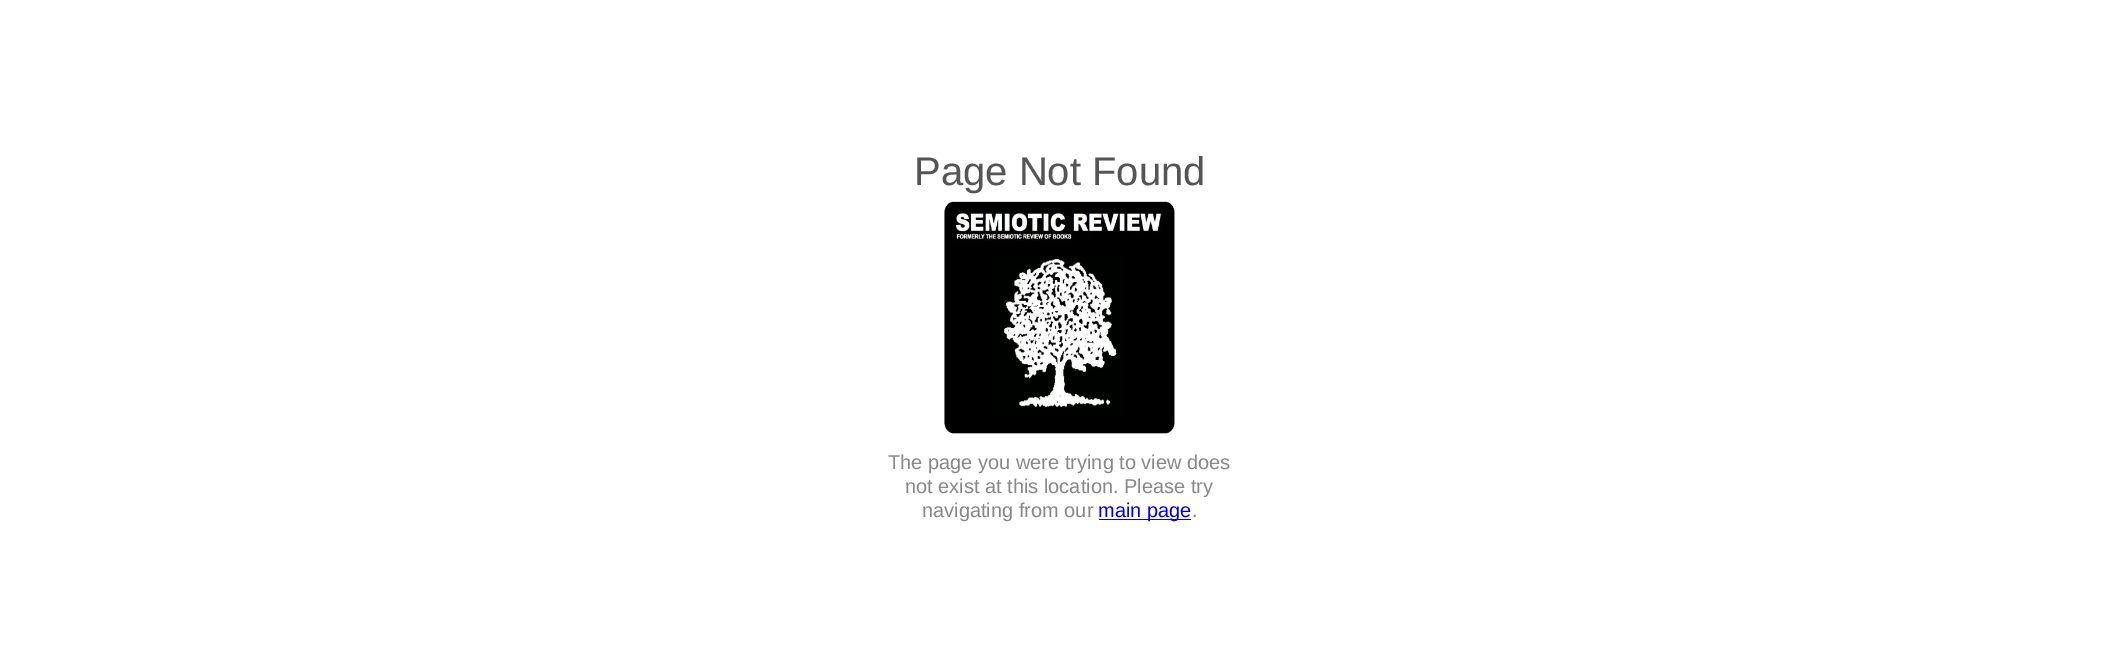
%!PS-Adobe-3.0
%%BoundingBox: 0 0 2118 669
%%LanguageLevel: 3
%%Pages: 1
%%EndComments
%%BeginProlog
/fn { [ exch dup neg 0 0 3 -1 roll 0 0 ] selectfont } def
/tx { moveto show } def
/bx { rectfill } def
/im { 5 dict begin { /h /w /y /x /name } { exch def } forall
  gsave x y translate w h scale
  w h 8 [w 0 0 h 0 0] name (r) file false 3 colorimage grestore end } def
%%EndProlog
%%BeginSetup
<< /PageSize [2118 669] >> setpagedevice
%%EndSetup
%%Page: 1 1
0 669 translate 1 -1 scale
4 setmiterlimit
1 setgray
0 0 2118 669 bx
/LiberationSans-Regular 40 fn
0.333 setgray
(Page Not Found) 914 185 tx
(image0.raw) 944 200 231 234 im
/LiberationSans-Regular 20 fn
0.533 setgray
(The page you were trying to view does) 888 469 tx
(not exist at this location. Please try) 905 493 tx
(navigating from our) 922 517 tx
0 0 0.933 setrgbcolor
1099 519 92 1 bx
(main page) 1098 517 tx
0.533 setgray
(.) 1192 517 tx
showpage
%%EOF
